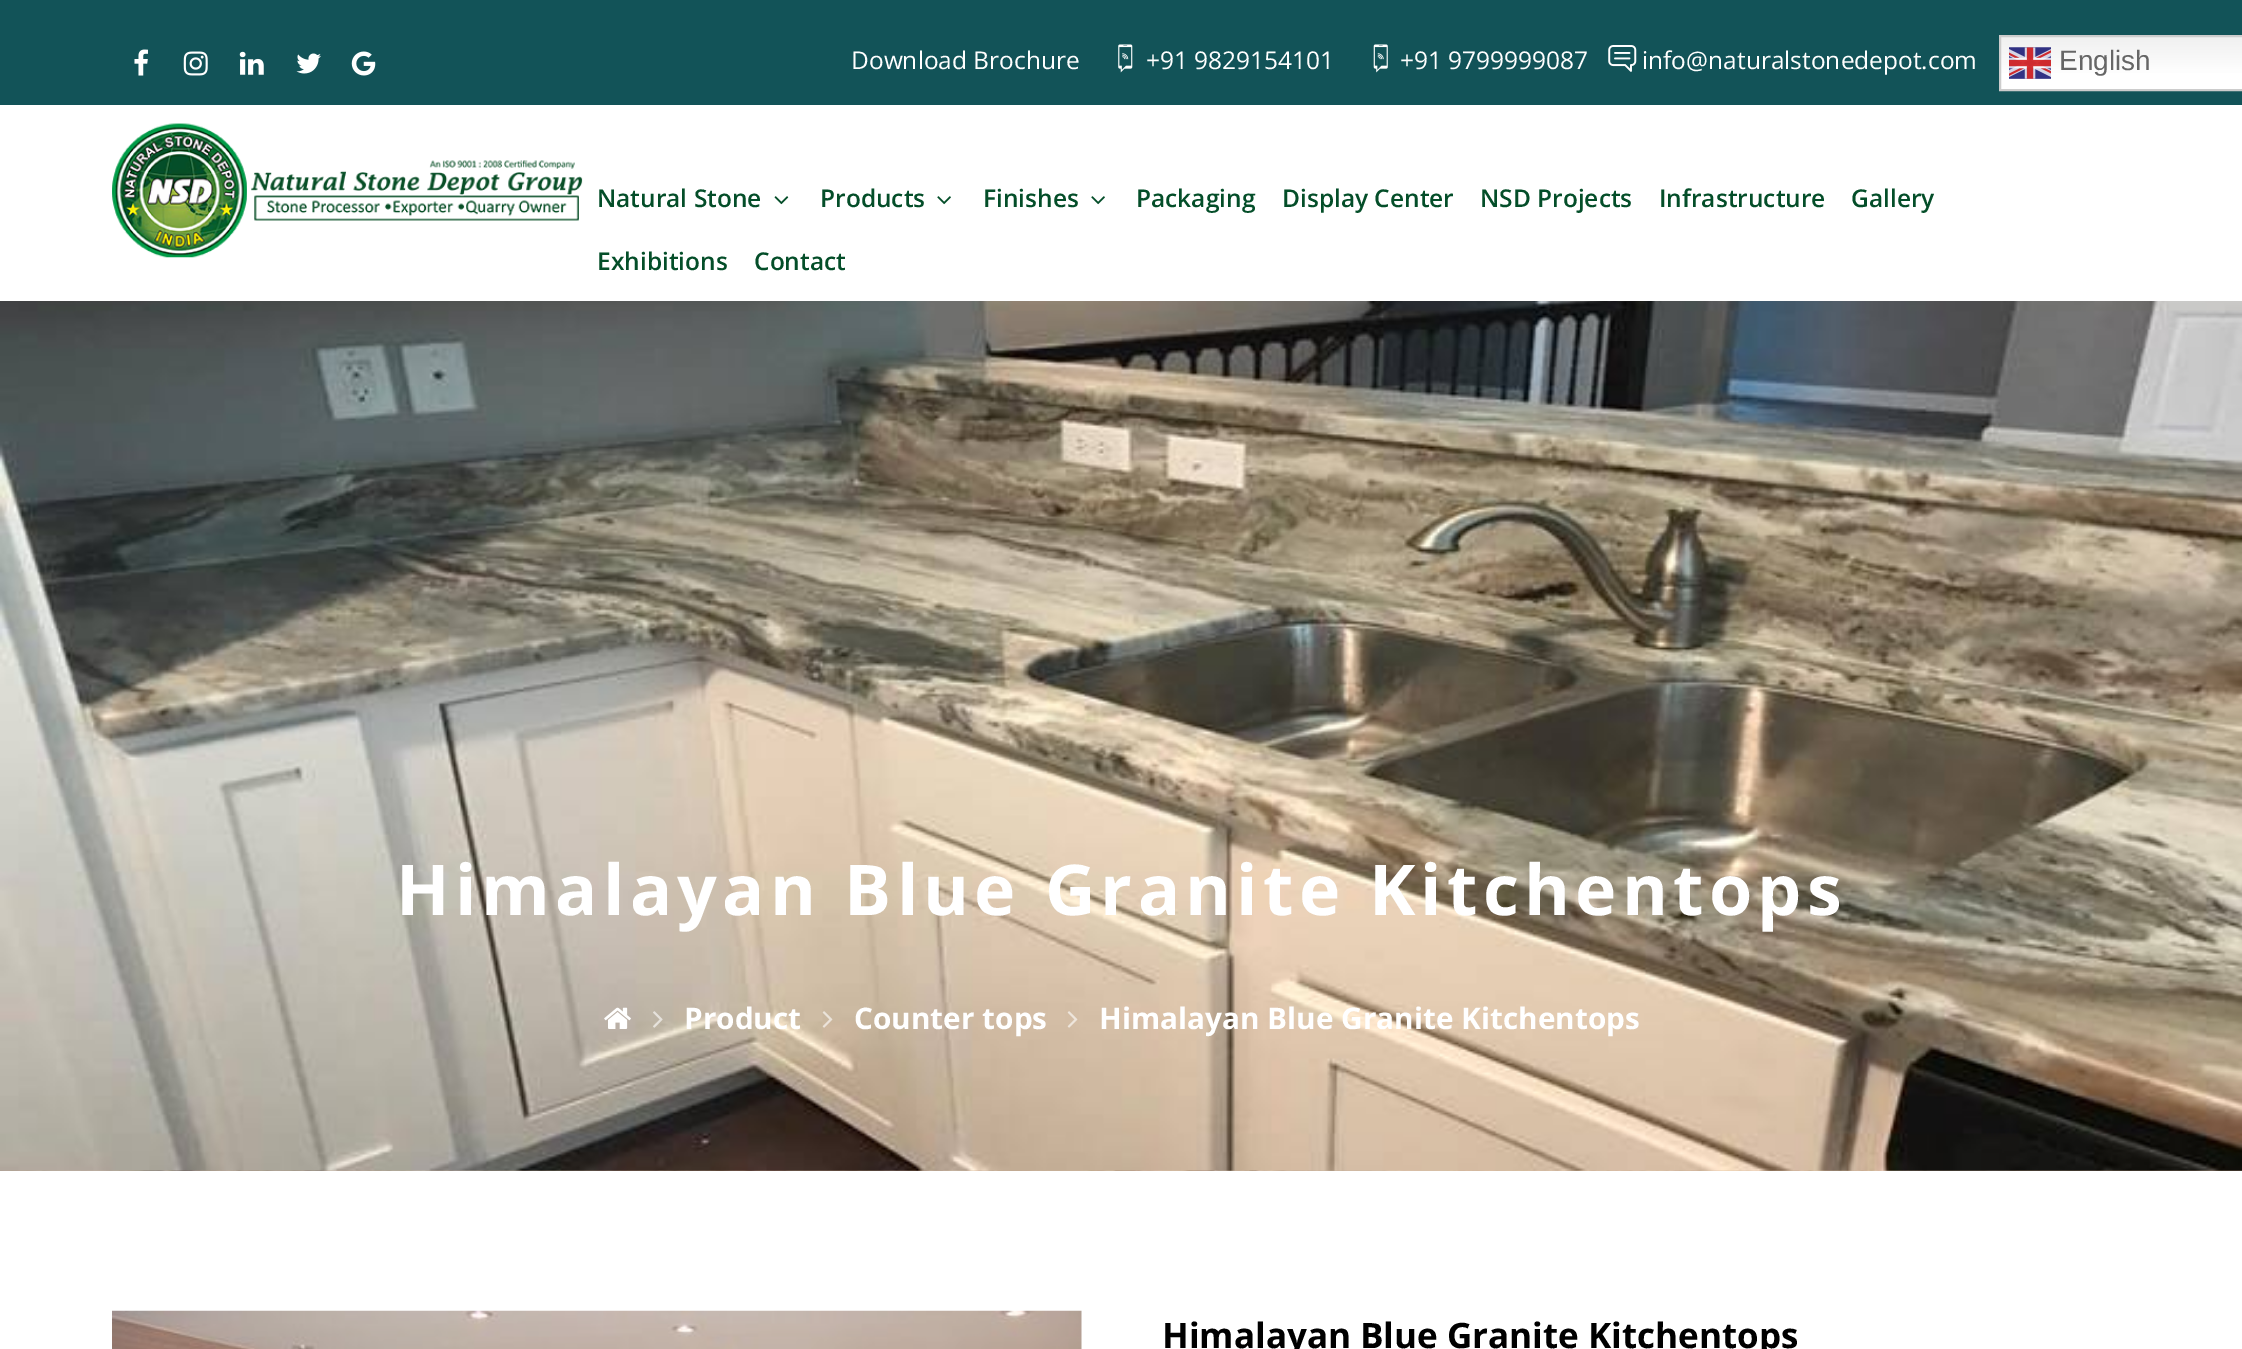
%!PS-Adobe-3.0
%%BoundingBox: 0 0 2242 1349
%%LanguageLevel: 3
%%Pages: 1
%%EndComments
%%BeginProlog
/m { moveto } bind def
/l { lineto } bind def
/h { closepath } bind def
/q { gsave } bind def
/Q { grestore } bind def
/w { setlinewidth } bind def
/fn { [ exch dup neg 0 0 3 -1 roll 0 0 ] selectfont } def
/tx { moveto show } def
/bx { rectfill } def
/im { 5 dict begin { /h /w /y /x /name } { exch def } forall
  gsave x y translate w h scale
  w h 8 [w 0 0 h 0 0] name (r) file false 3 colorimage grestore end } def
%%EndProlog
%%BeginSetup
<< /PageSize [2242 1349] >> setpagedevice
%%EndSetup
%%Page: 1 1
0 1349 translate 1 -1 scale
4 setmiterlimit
1 setgray
0 0 2242 1349 bx
0.071 0.325 0.345 setrgbcolor
0 0 2242 105 bx
(image0.raw) 134 49 14 27 im
(image1.raw) 183 51 25 25 im
(image2.raw) 239 51 25 24 im
(image3.raw) 296 53 25 21 im
(image4.raw) 351 51 25 25 im
/OpenSans-Regular 24.5 fn
1 setgray
(Download Brochure) 851 69 tx
(image5.raw) 1118 44 15 29 im
(+91 9829154101) 1146 69 tx
(image6.raw) 1373 44 15 29 im
(+91 9799999087) 1400 69 tx
(image7.raw) 1608 45 29 27 im
(info@naturalstonedepot.com) 1642 69 tx
q 2001 37 m 2242 37 l 2242 89 l 2001 89 l h clip newpath
<< /ShadingType 2 /ColorSpace /DeviceRGB /Coords [2150 35 2150 91] /Extend [true true] /Function << /FunctionType 3 /Domain [0 1] /Functions [<< /FunctionType 2 /Domain [0 1] /C0 [0.937 0.937 0.937] /C1 [1 1 1] /N 1 >> << /FunctionType 2 /Domain [0 1] /C0 [1 1 1] /C1 [1 1 1] /N 1 >>] /Bounds [0.7] /Encode [0 1 0 1] >> >> shfill Q
0.8 setgray
2 w
2000 36 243 54 rectstroke
(image8.raw) 2009 47 42 32 im
/LiberationSans-Regular 28 fn
0.4 setgray
(English) 2059 70 tx
(image9.raw) 112 123 471 135 im
/OpenSans-SemiBold 24.5 fn
0.016 0.306 0.161 setrgbcolor
(Natural Stone) 597 207 tx
(image10.raw) 774 196 15 9 im
(Products) 820 207 tx
(image11.raw) 937 196 14 9 im
(Finishes) 983 207 tx
(image11.raw) 1091 196 14 9 im
(Packaging) 1136 207 tx
(Display Center) 1282 207 tx
(NSD Projects) 1480 207 tx
(Infrastructure) 1659 207 tx
(Gallery) 1851 207 tx
(Exhibitions) 597 270 tx
(Contact) 754 270 tx
(image12.raw) 0 1170 2242 1 im
(image13.raw) 0 301 2242 870 im
/OpenSans-Bold 70 fn
1 setgray
396 915 m 5.25 0 (Himalayan Blue Granite Kitchentops) ashow
(image14.raw) 604 1007 27 22 im
(image15.raw) 653 1011 10 17 im
/OpenSans-Bold 29.75 fn
(Product) 684 1029 tx
(image16.raw) 822 1011 11 17 im
(Counter tops) 854 1029 tx
(image17.raw) 1067 1011 11 17 im
(Himalayan Blue Granite Kitchentops) 1099 1029 tx
(image18.raw) 112 1310 970 39 im
/OpenSans-Bold 35 fn
0 setgray
(Himalayan Blue Granite Kitchentops) 1162 1348 tx
showpage
%%EOF
